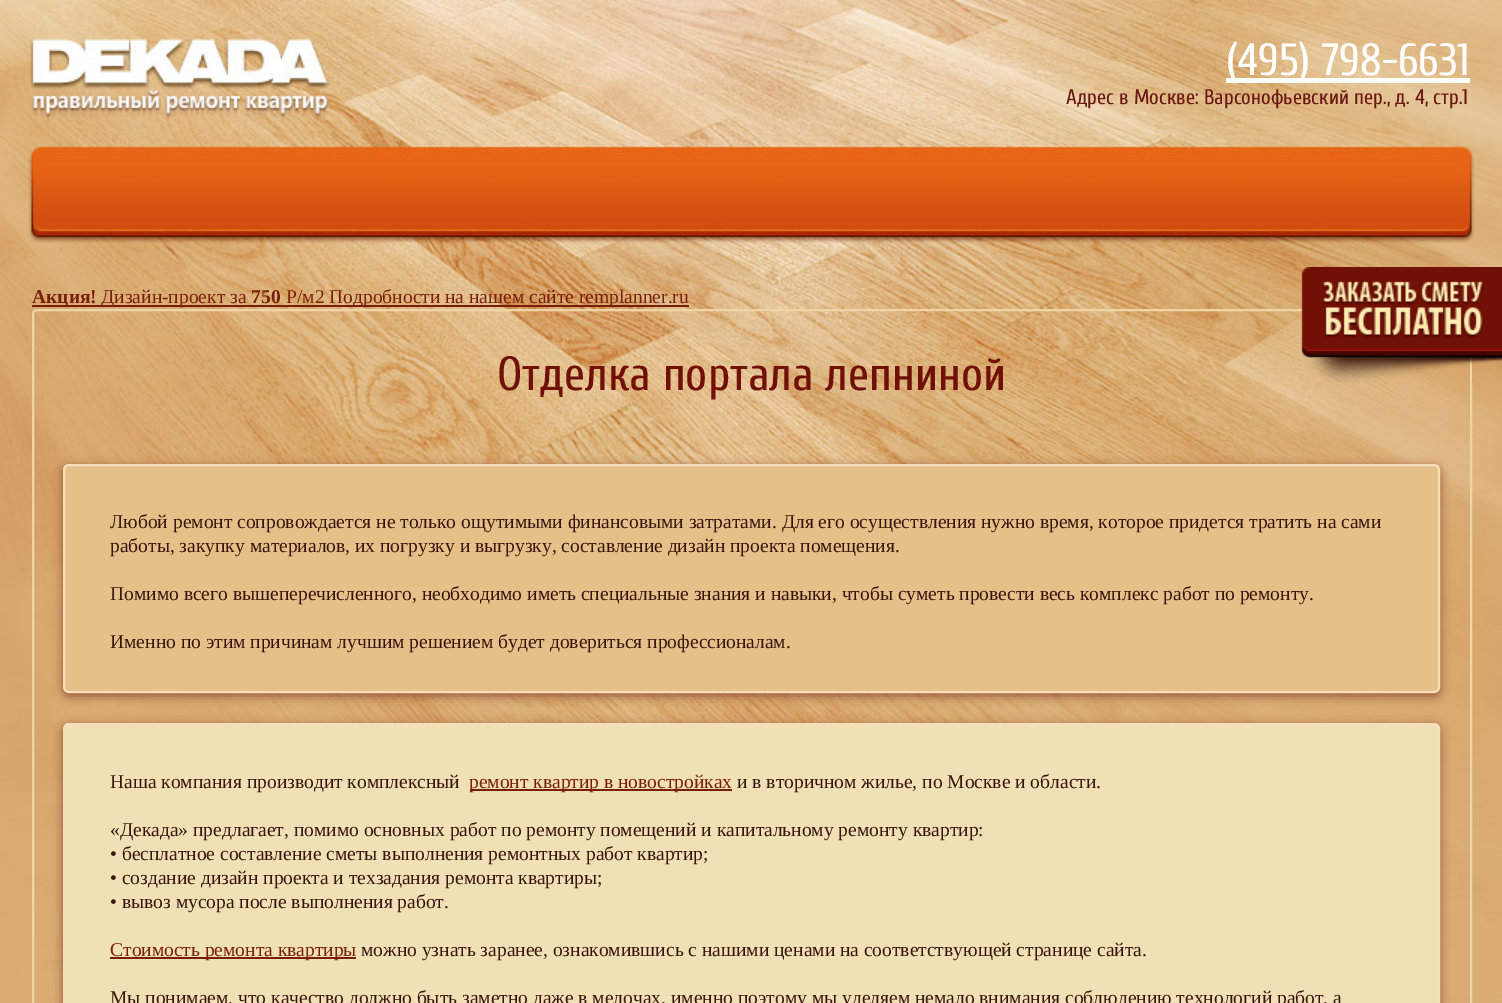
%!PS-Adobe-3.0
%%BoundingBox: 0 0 1502 1003
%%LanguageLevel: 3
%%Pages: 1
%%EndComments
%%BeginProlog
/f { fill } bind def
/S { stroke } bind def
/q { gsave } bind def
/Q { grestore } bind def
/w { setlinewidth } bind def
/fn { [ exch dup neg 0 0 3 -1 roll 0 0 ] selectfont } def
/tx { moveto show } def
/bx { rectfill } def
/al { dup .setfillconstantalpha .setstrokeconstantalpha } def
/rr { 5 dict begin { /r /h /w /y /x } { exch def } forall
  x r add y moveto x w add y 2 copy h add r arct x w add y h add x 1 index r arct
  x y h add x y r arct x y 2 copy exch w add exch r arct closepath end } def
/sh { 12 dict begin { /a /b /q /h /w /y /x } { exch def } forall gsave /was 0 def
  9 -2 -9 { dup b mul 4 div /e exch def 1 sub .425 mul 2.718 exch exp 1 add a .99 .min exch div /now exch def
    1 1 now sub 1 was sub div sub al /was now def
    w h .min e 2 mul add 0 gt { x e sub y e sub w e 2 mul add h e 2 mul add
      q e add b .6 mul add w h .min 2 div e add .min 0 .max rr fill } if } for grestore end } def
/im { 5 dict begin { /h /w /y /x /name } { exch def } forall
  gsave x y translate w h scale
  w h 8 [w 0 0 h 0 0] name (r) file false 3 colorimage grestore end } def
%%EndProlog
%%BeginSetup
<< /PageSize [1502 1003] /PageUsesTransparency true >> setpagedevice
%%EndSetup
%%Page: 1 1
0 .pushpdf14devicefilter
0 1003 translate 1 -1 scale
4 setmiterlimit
1 setgray
0 0 1502 1003 bx
(image0.raw) 0 0 1502 1003 im
1226 78 244 5 bx
/Cuprum-Regular 45 fn
(\(495\) 798-6631) 1226 75 tx
/Cuprum-Regular 21 fn
0.424 0.094 0.071 setrgbcolor
(Адрес в Москве: Варсонофьевский пер., д. 4, стр.1) 1066 104 tx
0.478 0.118 0.047 setrgbcolor
32 305 657 2 bx
/LiberationSerif-Bold 19.5 fn
(Акция!) 32 303 tx
/LiberationSerif-Regular 19.5 fn
(Дизайн-проект за) 101 303 tx
/LiberationSerif-Bold 19.5 fn
(750) 251 303 tx
/LiberationSerif-Regular 19.5 fn
(Р/м2 Подробности на нашем сайте remplanner.ru) 286 303 tx
0.937 0.835 0.651 setrgbcolor
2 w
33 310 1438 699 4 rr S
(image1.raw) 1301 267 201 116 im
/Cuprum-Regular 48 fn
0.443 0.063 0.024 setrgbcolor
(Отделка портала лепниной) 497 390 tx
0.573 0.314 0.212 setrgbcolor
63 467 1377 229 6 5 1 sh
0.902 0.753 0.537 setrgbcolor
64 465 1375 227 5 rr q f Q
0.969 0.875 0.737 setrgbcolor
S
/LiberationSerif-Regular 19.5 fn
0.224 0.078 0.051 setrgbcolor
(Любой ремонт сопровождается не только ощутимыми финансовыми затратами. Для его осуществления нужно время, которое придется тратить на сами) 110 528 tx
(работы, закупку материалов, их погрузку и выгрузку, составление дизайн проекта помещения.) 110 552 tx
(Помимо всего вышеперечисленного, необходимо иметь специальные знания и навыки, чтобы суметь провести весь комплекс работ по ремонту.) 110 600 tx
(Именно по этим причинам лучшим решением будет довериться профессионалам.) 110 648 tx
0.573 0.314 0.212 setrgbcolor
63 726 1377 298 6 5 1 sh
0.941 0.878 0.71 setrgbcolor
64 724 1375 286 5 rr q f Q
0.969 0.875 0.737 setrgbcolor
S
0.224 0.078 0.051 setrgbcolor
(Наша компания производит комплексный) 110 788 tx
0.478 0.118 0.047 setrgbcolor
470 789 262 2 bx
(ремонт квартир в новостройках) 469 788 tx
0.224 0.078 0.051 setrgbcolor
(и в вторичном жилье, по Москве и области.) 737 788 tx
(«Декада» предлагает, помимо основных работ по ремонту помещений и капитальному ремонту квартир:) 110 836 tx
(• бесплатное составление сметы выполнения ремонтных работ квартир;) 110 860 tx
(• создание дизайн проекта и техзадания ремонта квартиры;) 110 884 tx
(• вывоз мусора после выполнения работ.) 110 908 tx
0.478 0.118 0.047 setrgbcolor
110 957 246 2 bx
(Стоимость ремонта квартиры) 110 956 tx
0.224 0.078 0.051 setrgbcolor
(можно узнать заранее, ознакомившись с нашими ценами на соответствующей странице сайта.) 361 956 tx
(Мы понимаем, что качество должно быть заметно даже в мелочах, именно поэтому мы уделяем немало внимания соблюдению технологий работ, а) 110 1004 tx
.poppdf14devicefilter showpage
%%EOF
